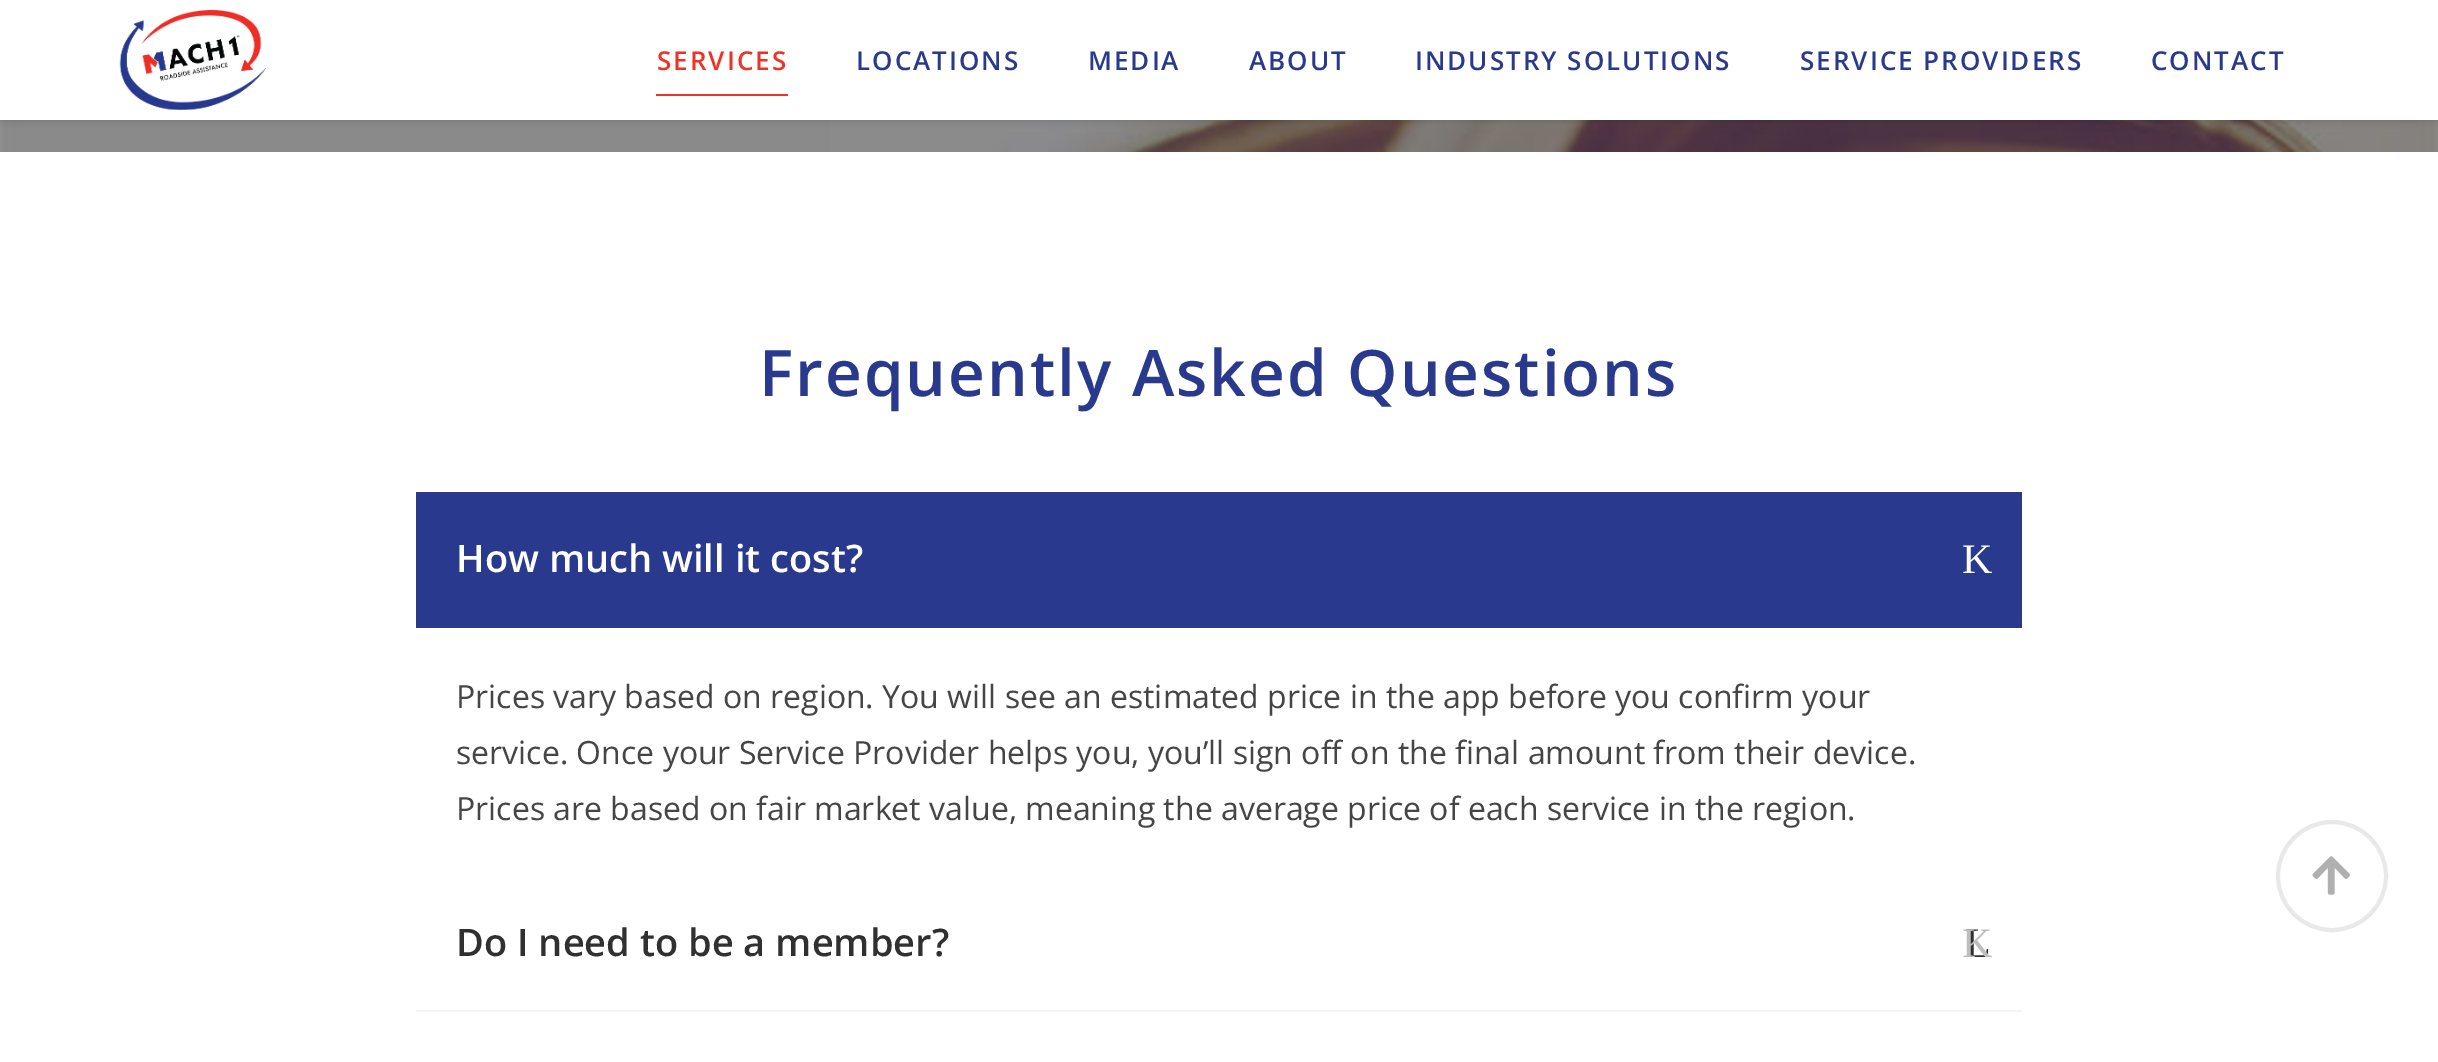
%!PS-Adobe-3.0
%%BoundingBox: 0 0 2438 1062
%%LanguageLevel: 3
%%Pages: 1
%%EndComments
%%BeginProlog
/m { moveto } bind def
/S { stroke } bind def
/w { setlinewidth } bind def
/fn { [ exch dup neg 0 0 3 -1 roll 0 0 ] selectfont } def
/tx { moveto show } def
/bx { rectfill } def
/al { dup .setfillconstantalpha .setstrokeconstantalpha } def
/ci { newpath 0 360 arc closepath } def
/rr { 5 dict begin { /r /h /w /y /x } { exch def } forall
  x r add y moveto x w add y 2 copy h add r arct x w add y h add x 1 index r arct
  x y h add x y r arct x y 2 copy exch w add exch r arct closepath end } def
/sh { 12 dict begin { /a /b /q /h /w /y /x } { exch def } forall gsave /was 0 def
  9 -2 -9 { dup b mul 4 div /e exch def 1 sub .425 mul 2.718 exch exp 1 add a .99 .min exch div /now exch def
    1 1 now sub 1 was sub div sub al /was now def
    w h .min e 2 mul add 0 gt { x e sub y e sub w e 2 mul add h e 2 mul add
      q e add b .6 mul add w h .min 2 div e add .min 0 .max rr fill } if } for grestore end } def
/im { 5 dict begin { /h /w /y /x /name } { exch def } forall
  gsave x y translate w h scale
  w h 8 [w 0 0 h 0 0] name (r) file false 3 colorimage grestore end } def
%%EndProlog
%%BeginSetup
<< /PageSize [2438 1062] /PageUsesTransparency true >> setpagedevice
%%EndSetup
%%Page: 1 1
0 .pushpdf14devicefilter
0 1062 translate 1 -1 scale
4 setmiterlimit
1 setgray
0 0 2438 1062 bx
(image1.raw) 0 120 2438 32 im
0 setgray
0 2 2438 120 0 3 0.11 sh
1 setgray
0 0 2438 120 bx
(image0.raw) 119 10 147 100 im
/OpenSans-SemiBold 26 fn
0.933 0.196 0.145 setrgbcolor
657 70 m 2 0 (SERVICES) ashow
656 94 132 2 bx
0.161 0.224 0.553 setrgbcolor
856 70 m 2 0 (LOCATIONS) ashow
1088 70 m 2 0 (MEDIA) ashow
1249 70 m 2 0 (ABOUT) ashow
1415 70 m 2 0 (INDUSTRY SOLUTIONS) ashow
1800 70 m 2 0 (SERVICE PROVIDERS) ashow
2151 70 m 2 0 (CONTACT) ashow
/OpenSans-SemiBold 64 fn
759 396 m 2 0 (Frequently Asked Questions) ashow
416 492 1606 136 bx
/OpenSans-SemiBold 38 fn
1 setgray
(How much will it cost?) 456 572 tx
/LiberationSerif-Regular 42 fn
(K) 1962 573 tx
/OpenSans-Regular 32 fn
0.271 setgray
(Prices vary based on region. You will see an estimated price in the app before you confirm your) 456 708 tx
(service. Once your Service Provider helps you, you’ll sign off on the final amount from their device.) 456 764 tx
(Prices are based on fair market value, meaning the average price of each service in the region.) 456 820 tx
0.957 setgray
416 1010 1606 2 bx
/OpenSans-SemiBold 38 fn
0.188 setgray
(Do I need to be a member?) 456 956 tx
/LiberationSerif-Regular 42 fn
(L) 1965 957 tx
0.745 setgray
(K) 1962 957 tx
0.91 setgray
4 w
2332 876 54 ci S
(image2.raw) 2312 856 38 39 im
.poppdf14devicefilter showpage
%%EOF
